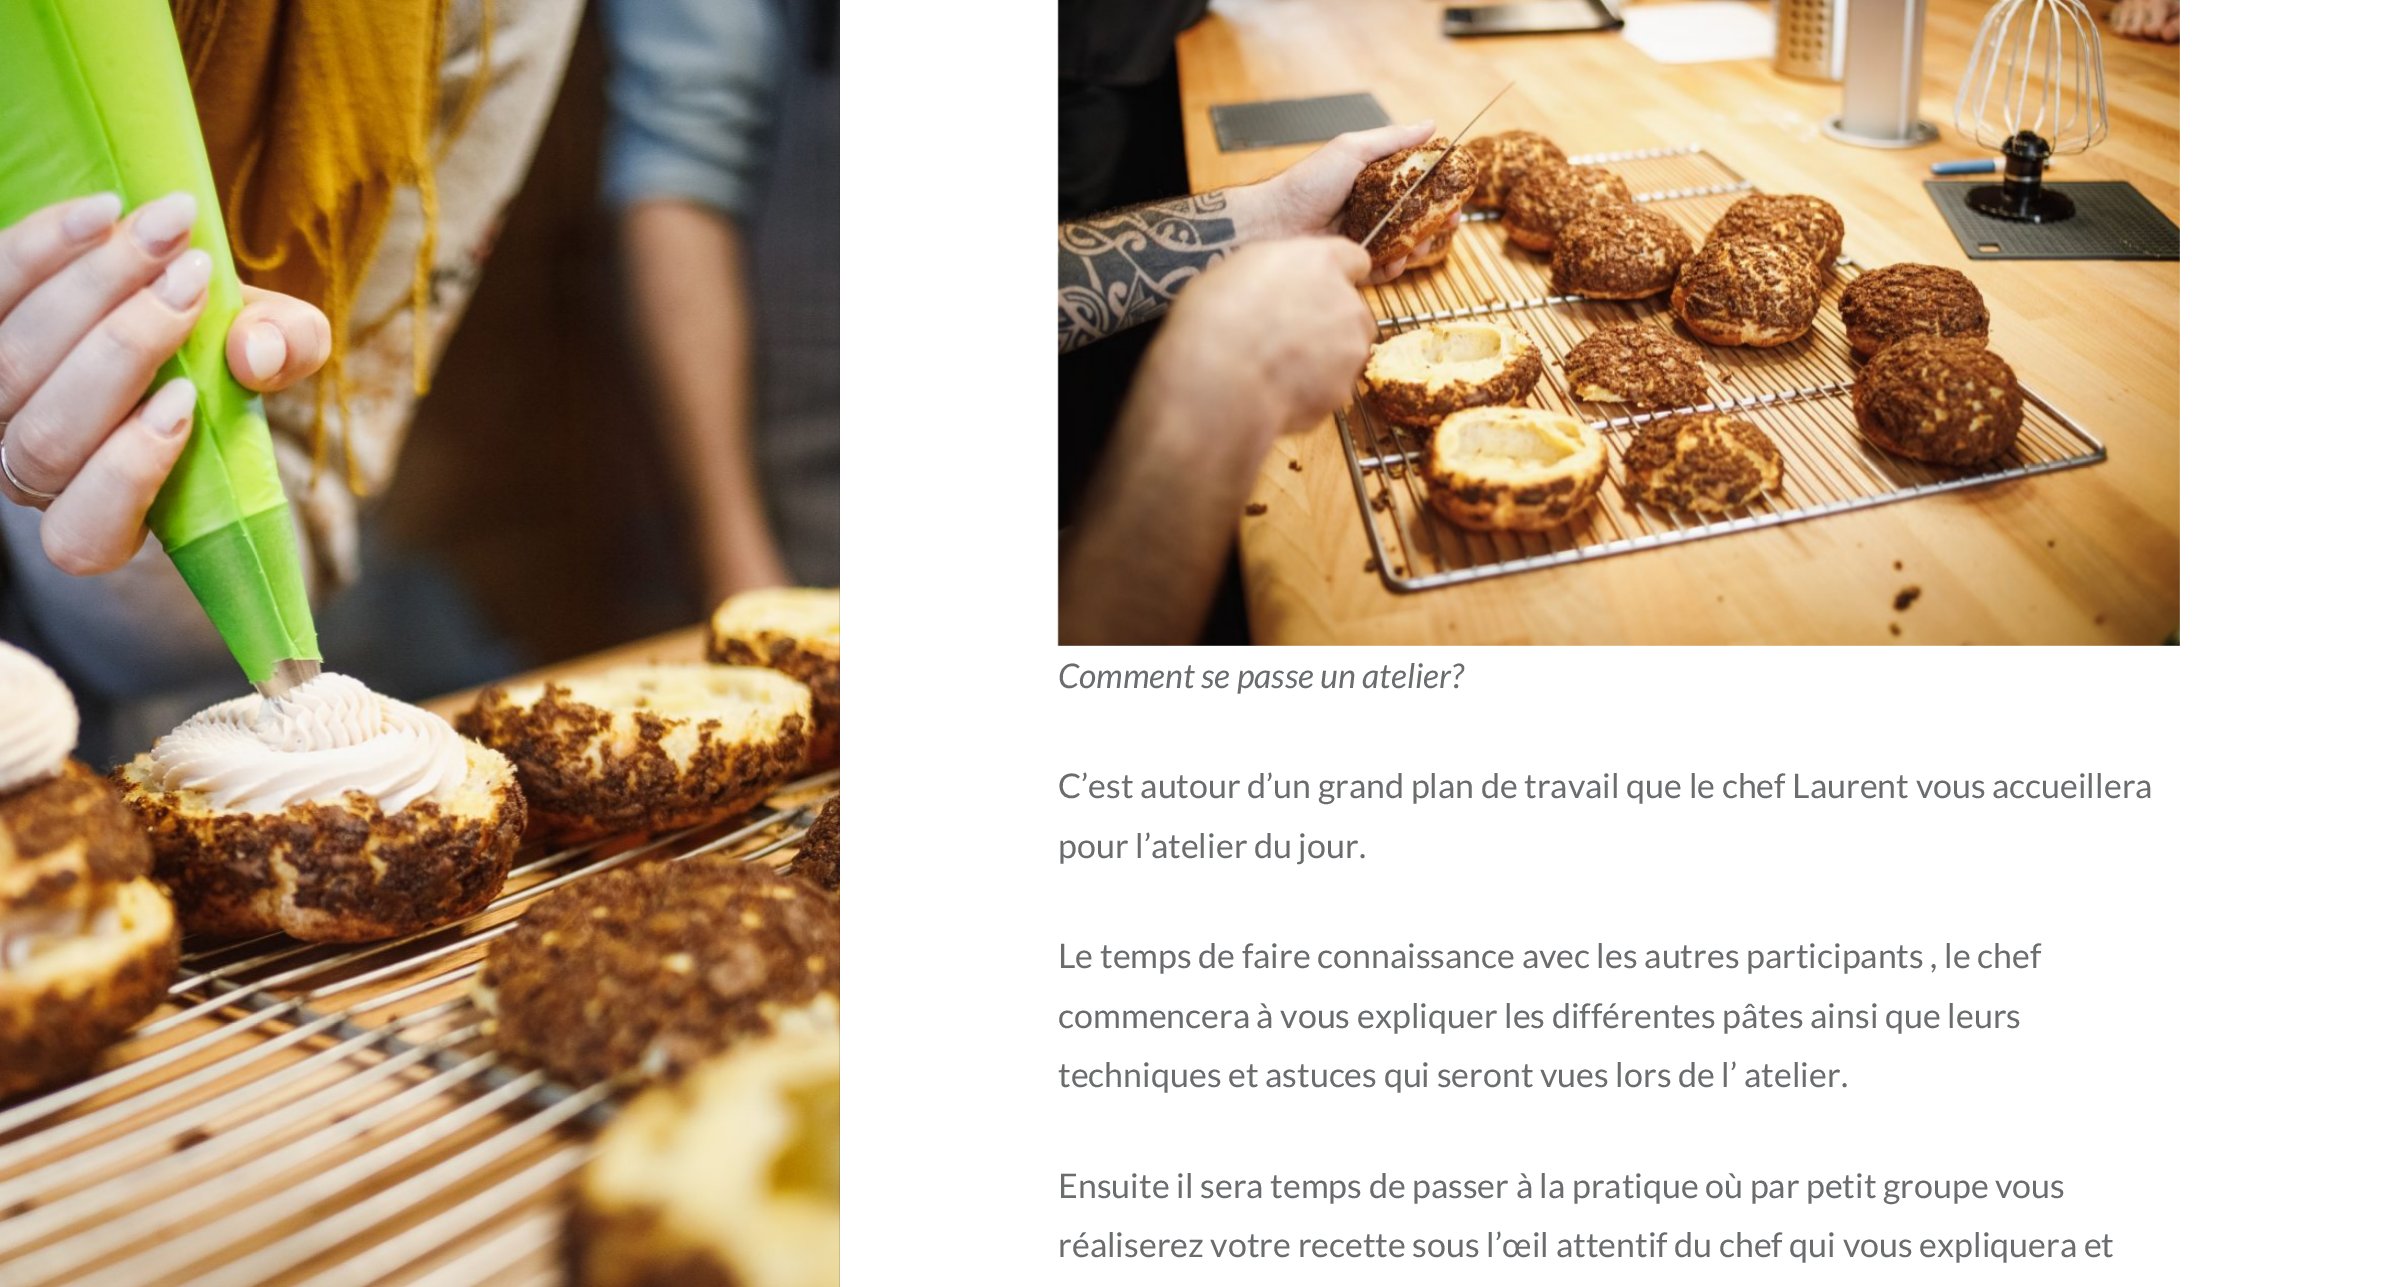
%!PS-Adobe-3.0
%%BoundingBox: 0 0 2397 1287
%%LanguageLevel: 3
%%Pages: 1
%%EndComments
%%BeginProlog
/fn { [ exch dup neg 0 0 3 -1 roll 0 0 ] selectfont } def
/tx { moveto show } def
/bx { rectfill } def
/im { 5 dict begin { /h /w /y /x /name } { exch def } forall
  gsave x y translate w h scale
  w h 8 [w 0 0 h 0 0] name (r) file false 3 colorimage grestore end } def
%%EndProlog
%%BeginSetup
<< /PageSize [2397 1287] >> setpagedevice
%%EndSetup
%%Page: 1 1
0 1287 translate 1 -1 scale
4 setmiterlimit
1 setgray
0 0 2397 1287 bx
(image0.raw) 0 0 840 1287 im
(image1.raw) 1057 0 1123 646 im
/Lato-Italic 34 fn
0.416 0.424 0.431 setrgbcolor
(Comment se passe un atelier?) 1058 688 tx
/Lato-Regular 34 fn
(C’est autour d’un grand plan de travail que le chef Laurent vous accueillera) 1058 798 tx
(pour l’atelier du jour.) 1058 858 tx
(Le temps de faire connaissance avec les autres participants , le chef) 1058 968 tx
(commencera à vous expliquer les différentes pâtes ainsi que leurs) 1058 1028 tx
(techniques et astuces qui seront vues lors de l’ atelier.) 1058 1087 tx
(Ensuite il sera temps de passer à la pratique où par petit groupe vous) 1058 1198 tx
(réaliserez votre recette sous l’œil attentif du chef qui vous expliquera et) 1058 1257 tx
showpage
%%EOF
